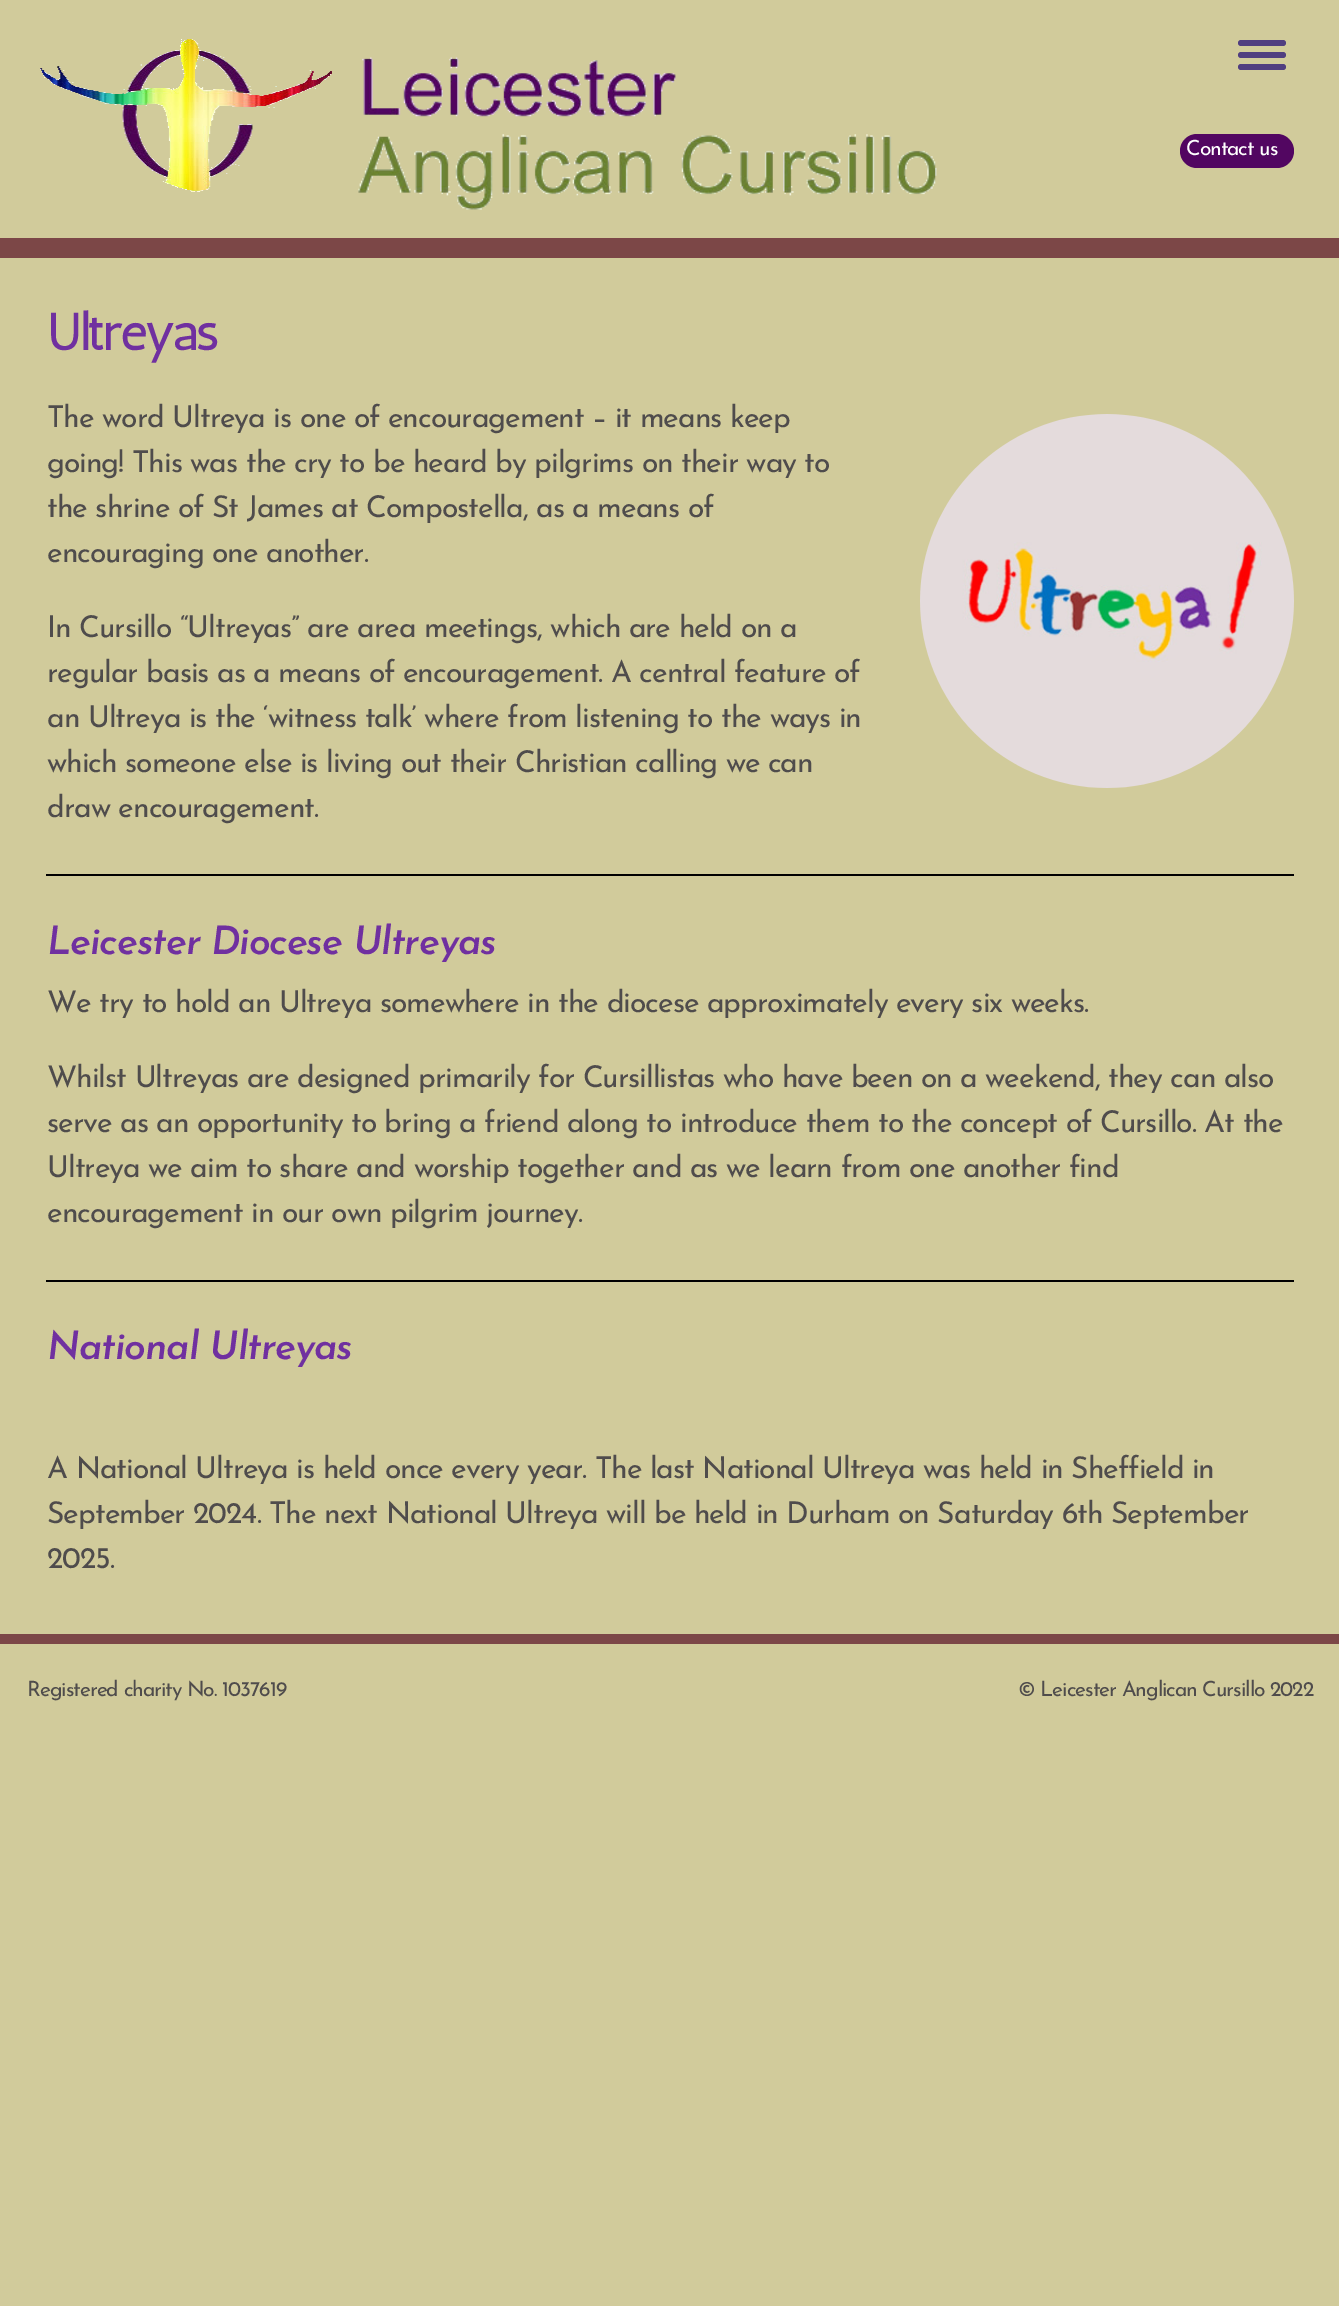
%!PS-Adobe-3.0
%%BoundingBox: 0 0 1339 2306
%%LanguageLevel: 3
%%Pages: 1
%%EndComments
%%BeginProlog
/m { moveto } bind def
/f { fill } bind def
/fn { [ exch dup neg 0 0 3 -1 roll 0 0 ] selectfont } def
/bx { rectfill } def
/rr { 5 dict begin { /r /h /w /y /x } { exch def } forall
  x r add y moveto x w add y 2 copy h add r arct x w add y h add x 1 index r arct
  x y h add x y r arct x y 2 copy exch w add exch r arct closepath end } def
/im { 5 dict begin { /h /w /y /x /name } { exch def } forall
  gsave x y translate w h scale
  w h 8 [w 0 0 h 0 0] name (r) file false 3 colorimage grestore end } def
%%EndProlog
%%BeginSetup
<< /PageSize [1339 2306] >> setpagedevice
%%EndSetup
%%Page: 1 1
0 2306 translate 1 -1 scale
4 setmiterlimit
0.82 0.796 0.608 setrgbcolor
0 0 1339 2306 bx
0.486 0.278 0.278 setrgbcolor
0 238 1339 20 bx
(image0.raw) 40 39 292 153 im
0.314 0.243 0.502 setrgbcolor
1238 40 48 6 3 rr f
1238 52 48 6 3 rr f
1238 64 48 6 3 rr f
(image1.raw) 358 57 579 153 im
0.322 0.024 0.38 setrgbcolor
1180 134 114 34 17 rr f
/JosefinSans-Regular 21 fn
1 setgray
1186 155 m -1 0 (Contact us) ashow
/Antic-Bold 51 fn
0.439 0.188 0.627 setrgbcolor
47 350 m -1 0 (Ultreyas) ashow
/JosefinSans-Regular 30 fn
0.31 0.298 0.298 setrgbcolor
47 427 m -1 0 (The word Ultreya is one of encouragement – it means keep) ashow
(image2.raw) 920 414 374 374 im
47 472 m -1 0 (going! This was the cry to be heard by pilgrims on their way to) ashow
47 517 m -1 0 (the shrine of St James at Compostella, as a means of) ashow
47 562 m -1 0 (encouraging one another.) ashow
47 637 m -1 0 (In Cursillo “Ultreyas” are area meetings, which are held on a) ashow
47 682 m -1 0 (regular basis as a means of encouragement. A central feature of) ashow
47 727 m -1 0 (an Ultreya is the ‘witness talk’ where from listening to the ways in) ashow
47 772 m -1 0 (which someone else is living out their Christian calling we can) ashow
47 817 m -1 0 (draw encouragement.) ashow
0 setgray
46 874 1248 2 bx
/JosefinSans-SemiBoldItalic 39 fn
0.439 0.188 0.627 setrgbcolor
47 954 m -1 0 (Leicester Diocese Ultreyas) ashow
/JosefinSans-Regular 30 fn
0.31 0.298 0.298 setrgbcolor
47 1012 m -1 0 (We try to hold an Ultreya somewhere in the diocese approximately every six weeks.) ashow
47 1087 m -1 0 (Whilst Ultreyas are designed primarily for Cursillistas who have been on a weekend, they can also) ashow
47 1132 m -1 0 (serve as an opportunity to bring a friend along to introduce them to the concept of Cursillo. At the) ashow
47 1177 m -1 0 (Ultreya we aim to share and worship together and as we learn from one another find) ashow
47 1222 m -1 0 (encouragement in our own pilgrim journey.) ashow
0 setgray
46 1280 1248 2 bx
/JosefinSans-SemiBoldItalic 39 fn
0.439 0.188 0.627 setrgbcolor
47 1359 m -1 0 (National Ultreyas) ashow
/JosefinSans-Regular 30 fn
0.31 0.298 0.298 setrgbcolor
47 1478 m -1 0 (A National Ultreya is held once every year. The last National Ultreya was held in Sheffield in) ashow
47 1523 m -1 0 (September 2024. The next National Ultreya will be held in Durham on Saturday 6th September) ashow
47 1568 m -1 0 (2025.) ashow
0.486 0.278 0.278 setrgbcolor
0 1634 1339 10 bx
/JosefinSans-Regular 21 fn
0.31 0.298 0.298 setrgbcolor
27 1696 m -1 0 (Registered charity No. 1037619) ashow
1018 1696 m -1 0 (© Leicester Anglican Cursillo 2022) ashow
showpage
%%EOF
